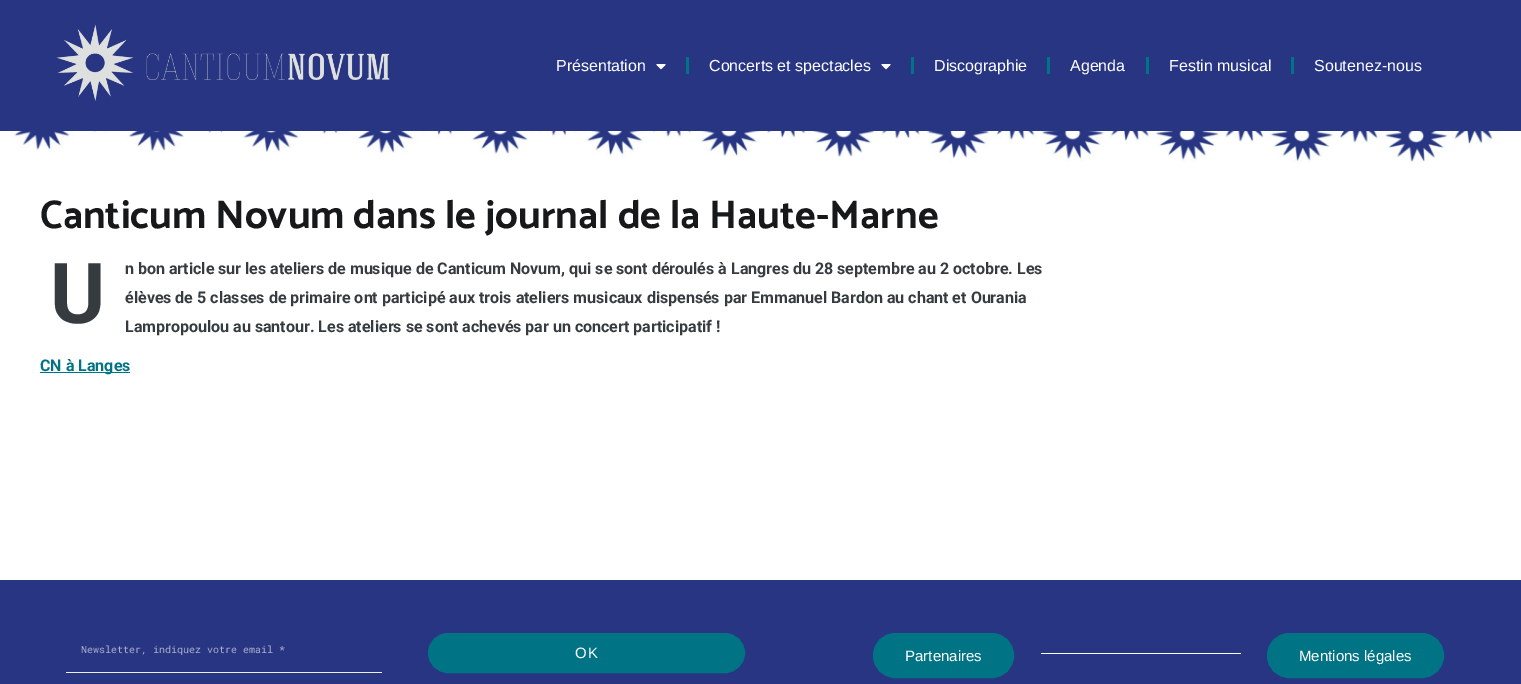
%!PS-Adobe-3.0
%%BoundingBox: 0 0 1521 684
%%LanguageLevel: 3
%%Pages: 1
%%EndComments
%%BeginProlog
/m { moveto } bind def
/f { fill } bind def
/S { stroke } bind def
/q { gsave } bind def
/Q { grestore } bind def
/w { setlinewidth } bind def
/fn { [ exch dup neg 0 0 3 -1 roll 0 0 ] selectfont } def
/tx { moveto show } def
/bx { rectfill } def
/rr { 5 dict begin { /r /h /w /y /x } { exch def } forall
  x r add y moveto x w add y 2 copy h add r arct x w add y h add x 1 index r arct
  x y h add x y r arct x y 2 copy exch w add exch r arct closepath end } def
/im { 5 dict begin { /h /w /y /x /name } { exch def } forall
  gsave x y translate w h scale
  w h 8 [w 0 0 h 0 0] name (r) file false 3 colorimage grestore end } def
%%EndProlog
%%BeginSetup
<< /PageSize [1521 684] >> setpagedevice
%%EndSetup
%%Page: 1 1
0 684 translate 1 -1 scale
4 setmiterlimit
1 setgray
0 0 1521 684 bx
0.157 0.208 0.514 setrgbcolor
0 0 1521 131 bx
(image0.raw) 56 24 334 77 im
/LiberationSans-Regular 16 fn
1 setgray
(Présentation) 556 71 tx
(image1.raw) 656 64 10 6 im
0 0.451 0.522 setrgbcolor
686 57 3 17 bx
1 setgray
(Concerts et spectacles) 709 71 tx
(image1.raw) 881 64 10 6 im
0 0.451 0.522 setrgbcolor
911 57 3 17 bx
1 setgray
(Discographie) 934 71 tx
0 0.451 0.522 setrgbcolor
1047 57 3 17 bx
1 setgray
(Agenda) 1070 71 tx
0 0.451 0.522 setrgbcolor
1146 57 3 17 bx
1 setgray
(Festin musical) 1169 71 tx
0 0.451 0.522 setrgbcolor
1291 57 3 17 bx
1 setgray
(Soutenez-nous) 1314 71 tx
(image2.raw) 10 131 1496 31 im
/Catamaran-Bold 40 fn
0.086 0.094 0.102 setrgbcolor
(Canticum Novum dans le journal de la Haute-Marne) 40 228 tx
/Roboto-Bold 84 fn
0.212 0.231 0.251 setrgbcolor
(U) 50 323 tx
/Roboto-Bold 16 fn
(n bon article sur les ateliers de musique de Canticum Novum, qui se sont déroulés à Langres du 28 septembre au 2 octobre. Les) 125 274 tx
(élèves de 5 classes de primaire ont participé aux trois ateliers musicaux dispensés par Emmanuel Bardon au chant et Ourania) 125 303 tx
(Lampropoulou au santour. Les ateliers se sont achevés par un concert participatif !) 125 332 tx
0 0.451 0.522 setrgbcolor
40 372 90 1 bx
(CN à Langes) 40 371 tx
0.157 0.208 0.514 setrgbcolor
0 580 1521 104 bx
0.933 setgray
66 672 316 1 bx
/RobotoMono-Regular 10 fn
0.663 0.682 0.804 setrgbcolor
(Newsletter, indiquez votre email *) 81 653 tx
0 0.451 0.522 setrgbcolor
429 634 315 38 19 rr q f Q
2 w
S
/LiberationSans-Regular 15 fn
1 setgray
575 658 m 1 0 (OK) ashow
0 0.451 0.522 setrgbcolor
874 634 139 43 21 rr q f Q
S
1 setgray
(Partenaires) 905 661 tx
1041 653 200 1 bx
0 0.451 0.522 setrgbcolor
1268 634 175 43 21 rr q f Q
S
1 setgray
(Mentions légales) 1299 661 tx
showpage
%%EOF
